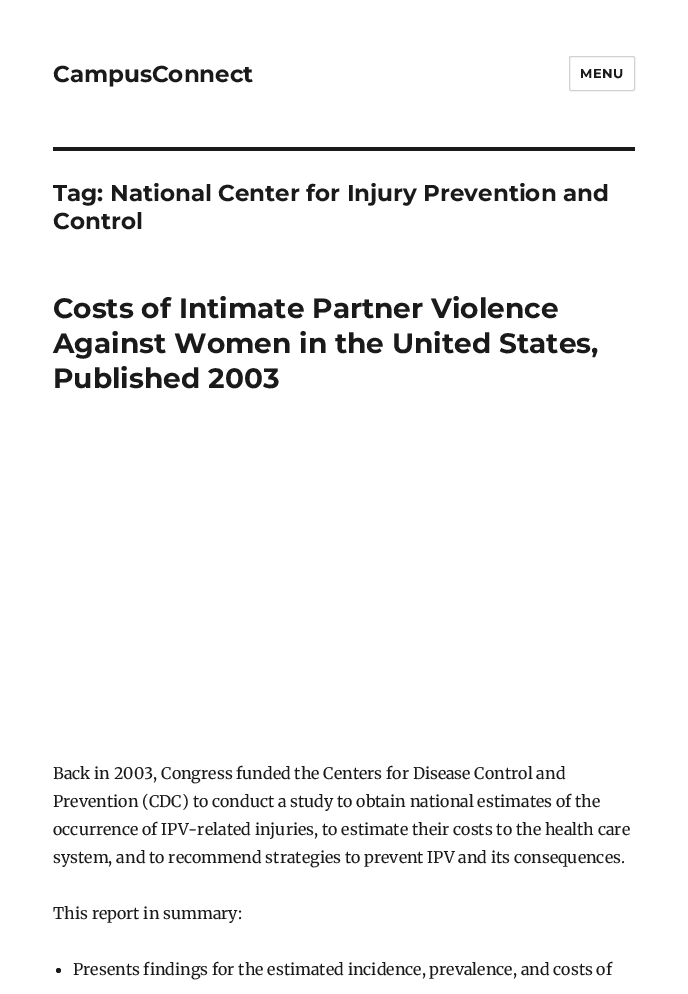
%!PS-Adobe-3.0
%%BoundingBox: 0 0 688 994
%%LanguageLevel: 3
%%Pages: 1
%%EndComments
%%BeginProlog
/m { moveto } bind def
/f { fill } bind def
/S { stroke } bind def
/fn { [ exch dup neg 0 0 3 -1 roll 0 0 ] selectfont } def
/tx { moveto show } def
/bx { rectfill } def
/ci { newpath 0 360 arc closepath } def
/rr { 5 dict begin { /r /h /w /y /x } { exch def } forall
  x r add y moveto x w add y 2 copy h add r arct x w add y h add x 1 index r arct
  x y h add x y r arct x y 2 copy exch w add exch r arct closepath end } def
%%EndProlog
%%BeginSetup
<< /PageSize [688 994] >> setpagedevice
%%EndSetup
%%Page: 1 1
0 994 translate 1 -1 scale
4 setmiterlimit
1 setgray
0 0 688 994 bx
/Montserrat-Bold 23 fn
0.102 setgray
(CampusConnect) 53 82 tx
0.82 setgray
569.5 56.5 65 34 1.5 rr S
/Montserrat-Bold 13 fn
0.102 setgray
580 78 m 0.5 0 (MENU) ashow
53 147 582 4 bx
/Montserrat-Bold 23 fn
(Tag: National Center for Injury Prevention and) 53 201 tx
(Control) 53 229 tx
/Montserrat-Bold 28 fn
(Costs of Intimate Partner Violence) 53 318 tx
(Against Women in the United States,) 53 353 tx
(Published 2003) 53 388 tx
/Merriweather-Regular 16 fn
(Back in 2003, Congress funded the Centers for Disease Control and) 53 779 tx
(Prevention \(CDC\) to conduct a study to obtain national estimates of the) 53 807 tx
(occurrence of IPV-related injuries, to estimate their costs to the health care) 53 835 tx
(system, and to recommend strategies to prevent IPV and its consequences.) 53 863 tx
(This report in summary:) 53 919 tx
58.5 970.5 2.5 ci f
(Presents findings for the estimated incidence, prevalence, and costs of) 73 975 tx
showpage
%%EOF
